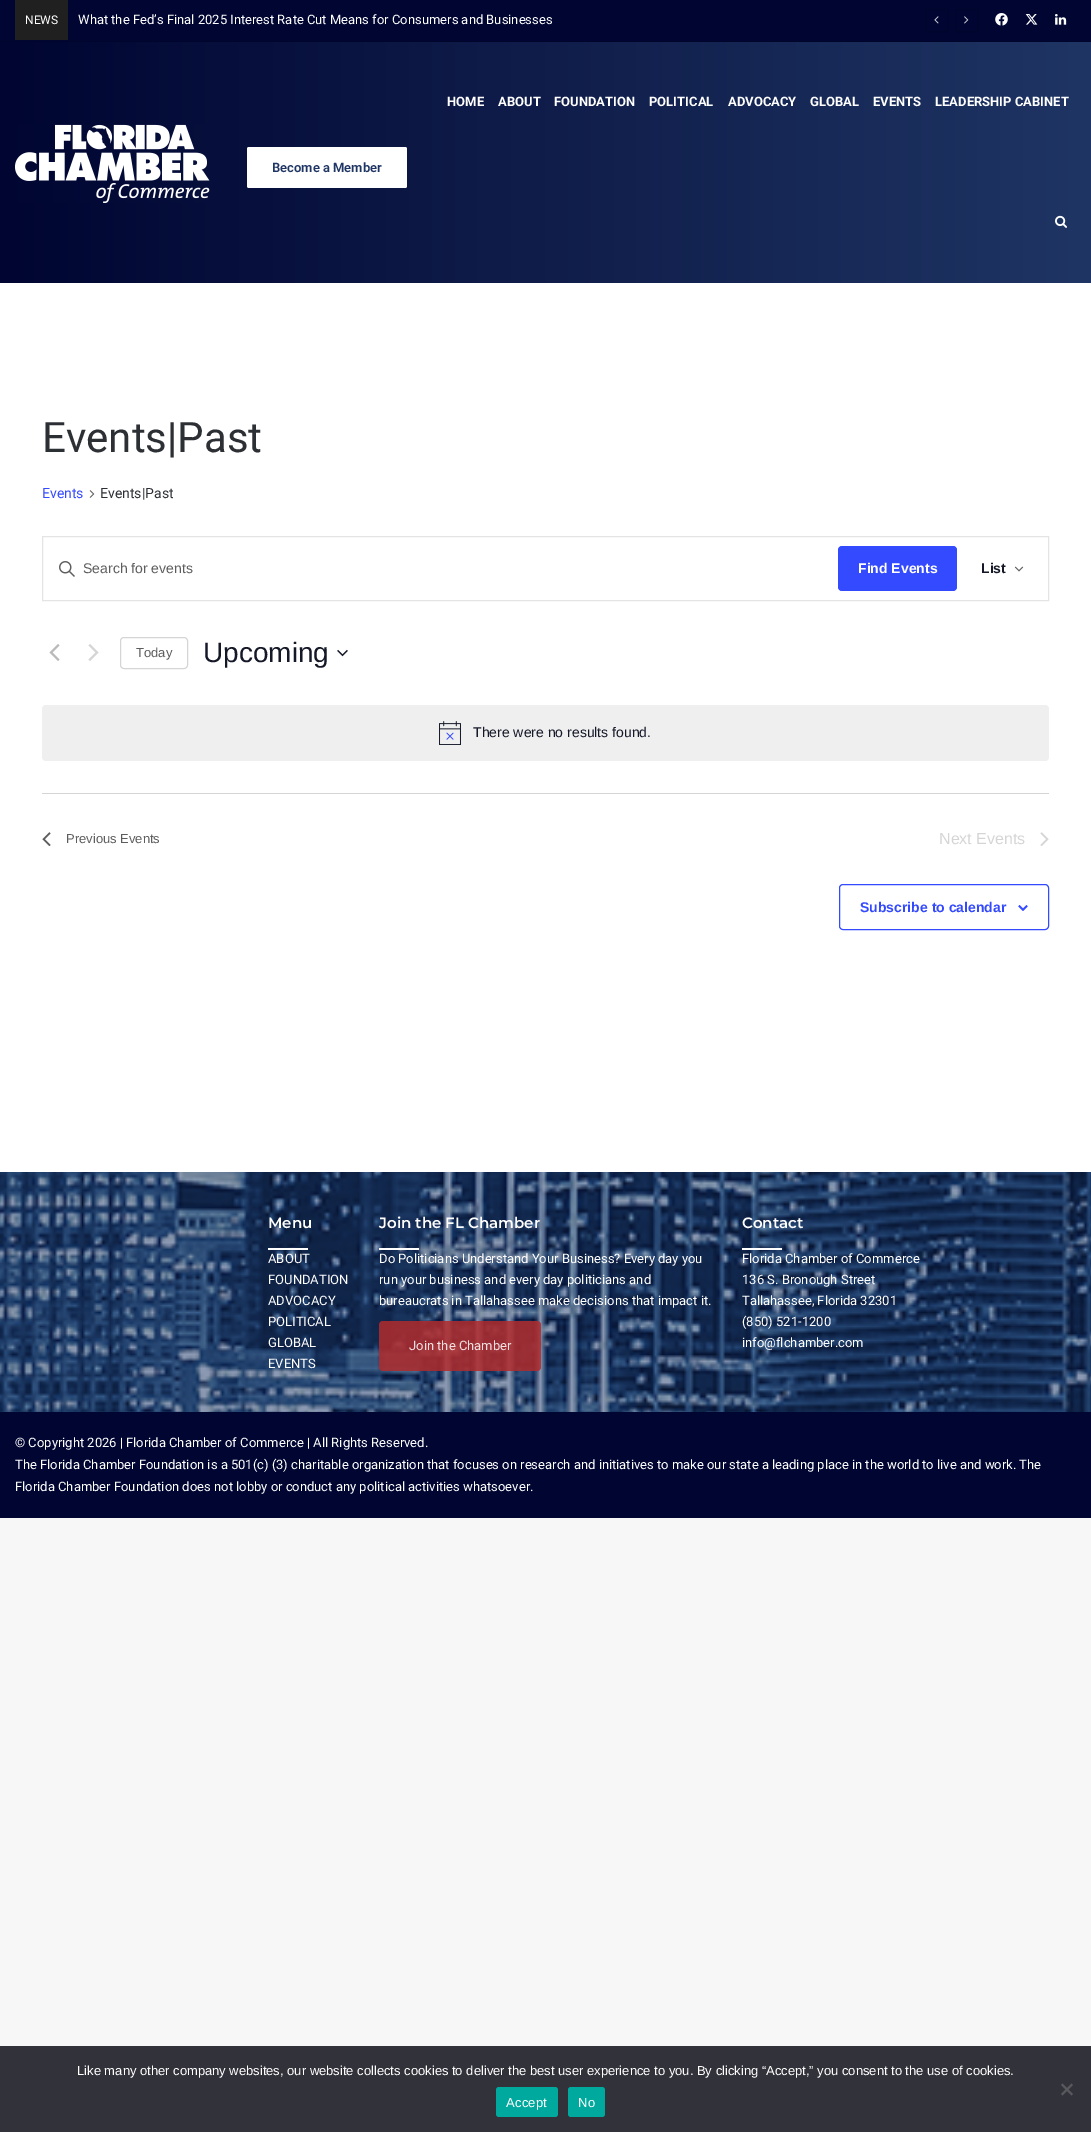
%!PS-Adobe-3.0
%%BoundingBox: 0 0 1091 2132
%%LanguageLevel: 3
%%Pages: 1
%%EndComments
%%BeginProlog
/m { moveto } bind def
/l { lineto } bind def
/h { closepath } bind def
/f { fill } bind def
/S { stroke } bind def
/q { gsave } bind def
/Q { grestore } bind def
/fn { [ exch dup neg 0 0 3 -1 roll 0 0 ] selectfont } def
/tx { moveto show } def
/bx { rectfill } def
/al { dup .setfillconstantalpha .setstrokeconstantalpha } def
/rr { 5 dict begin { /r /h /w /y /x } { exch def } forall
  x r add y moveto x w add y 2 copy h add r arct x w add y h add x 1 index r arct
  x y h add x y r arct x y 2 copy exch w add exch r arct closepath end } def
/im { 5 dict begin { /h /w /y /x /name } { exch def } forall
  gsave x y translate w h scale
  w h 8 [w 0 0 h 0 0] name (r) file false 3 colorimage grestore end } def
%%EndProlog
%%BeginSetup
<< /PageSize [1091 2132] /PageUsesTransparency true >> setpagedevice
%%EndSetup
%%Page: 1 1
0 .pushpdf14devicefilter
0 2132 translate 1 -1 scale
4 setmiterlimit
0.969 setgray
0 0 1091 2132 bx
1 setgray
0 283 1091 889 bx
0 0.02 0.192 setrgbcolor
0 0 1091 41 bx
0 0.02 0.173 setrgbcolor
0 41 1091 1 bx
0.125 setgray
15 0 53 40 bx
/Roboto-Regular 12 fn
1 setgray
(NEWS) 25 24 tx
/Roboto-Regular 13 fn
(What the Fed’s Final 2025 Interest Rate Cut Means for Consumers and Businesses) 78 24 tx
0 0.02 0.173 setrgbcolor
925.5 9.5 22 22 1.5 rr S
(image0.raw) 934 16 5 8 im
955.5 9.5 22 22 1.5 rr S
(image1.raw) 964 16 5 8 im
(image2.raw) 995 13 13 13 im
(image3.raw) 1025 14 13 11 im
(image4.raw) 1055 14 12 11 im
q 0 42 m 1091 42 l 1091 283 l 0 283 l h clip newpath
<< /ShadingType 2 /ColorSpace /DeviceRGB /Coords [0 162 1091 162] /Extend [true true] /Function << /FunctionType 2 /Domain [0 1] /C0 [0 0.02 0.192] /C1 [0.122 0.208 0.392] /N 1 >> >> shfill Q
/Roboto-Bold 13 fn
1 setgray
(HOME) 447 106 tx
(ABOUT) 498 106 tx
(FOUNDATION) 554 106 tx
(POLITICAL) 649 106 tx
(ADVOCACY) 728 106 tx
(GLOBAL) 810 106 tx
(EVENTS) 873 106 tx
(LEADERSHIP CABINET) 935 106 tx
(image5.raw) 1055 215 12 13 im
(image6.raw) 15 124 195 79 im
247 147 160 41 2 rr f
/Roboto-SemiBold 13 fn
0.122 0.208 0.392 setrgbcolor
(Become a Member) 272 172 tx
/Roboto-Regular 42 fn
0.173 0.184 0.204 setrgbcolor
(Events|Past) 42 452 tx
/Roboto-Regular 14 fn
0.2 0.29 1 setrgbcolor
(Events) 42 498 tx
(image7.raw) 89 490 6 8 im
0.173 0.184 0.204 setrgbcolor
(Events|Past) 100 498 tx
0.894 setgray
42.5 536.5 1006 64 rectstroke
(image8.raw) 59 561 16 16 im
/LiberationSans-Regular 14 fn
0.365 setgray
(Search for events) 83 573 tx
0.2 0.29 1 setrgbcolor
838 546 119 45 4 rr f
/LiberationSans-Bold 14 fn
1 setgray
(Find Events) 858 573 tx
0.078 0.094 0.153 setrgbcolor
(List) 981 573 tx
(image9.raw) 1014 566 10 6 im
(image10.raw) 49 644 11 17 im
(image11.raw) 88 644 11 17 im
0.835 setgray
120.5 637.5 67 31 3.5 rr S
/LiberationSans-Regular 13 fn
0.365 setgray
(Today) 136 657 tx
/LiberationSans-Regular 28 fn
0.078 0.094 0.153 setrgbcolor
(Upcoming) 203 662 tx
(image12.raw) 337 649 11 8 im
0.937 0.937 0.941 setrgbcolor
42 705 1007 56 4 rr f
(image13.raw) 439 721 22 24 im
/LiberationSans-Regular 14 fn
0.078 0.094 0.153 setrgbcolor
(There were no results found.) 473 737 tx
0.835 setgray
42 793 1007 1 bx
(image14.raw) 42 832 9 14 im
/LiberationSans-Regular 13 fn
0.365 setgray
(Previous Events) 66 843 tx
/LiberationSans-Regular 16 fn
0.835 setgray
(Next Events) 939 844 tx
(image15.raw) 1040 832 9 14 im
0.2 0.29 1 setrgbcolor
839.5 884.5 209 45 3.5 rr S
/LiberationSans-Bold 14 fn
(Subscribe to calendar) 860 912 tx
(image16.raw) 1018 905 10 6 im
0.059 0.165 0.388 setrgbcolor
0 1172 1091 240 bx
(image17.raw) 0 1172 1091 240 im
/Montserrat-SemiBold 15 fn
1 setgray
(Menu) 268 1228 tx
268 1248 40 2 bx
/Roboto-Regular 13 fn
(ABOUT) 268 1263 tx
(FOUNDATION) 268 1284 tx
(ADVOCACY) 268 1305 tx
(POLITICAL) 268 1326 tx
(GLOBAL) 268 1347 tx
(EVENTS) 268 1368 tx
/Montserrat-SemiBold 15 fn
(Join the FL Chamber) 379 1228 tx
379 1248 40 2 bx
/Roboto-Regular 13 fn
(Do Politicians Understand Your Business? Every day you) 379 1263 tx
(run your business and every day politicians and) 379 1284 tx
(bureaucrats in Tallahassee make decisions that impact it.) 379 1305 tx
0.85 al
0.69 0.169 0.173 setrgbcolor
379 1321 162 50 4 rr f
1 al
0.945 0.878 0.882 setrgbcolor
(Join the Chamber) 409 1350 tx
/Montserrat-SemiBold 15 fn
1 setgray
(Contact) 742 1228 tx
742 1248 40 2 bx
/Roboto-Regular 13 fn
(Florida Chamber of Commerce) 742 1263 tx
(136 S. Bronough Street) 742 1284 tx
(Tallahassee, Florida 32301) 742 1305 tx
(\(850\) 521-1200) 742 1326 tx
(info@flchamber.com) 742 1347 tx
0 0.02 0.192 setrgbcolor
0 1412 1091 106 bx
1 setgray
(© Copyright 2026 | Florida Chamber of Commerce | All Rights Reserved.) 15 1447 tx
(The Florida Chamber Foundation is a 501\(c\) \(3\) charitable organization that focuses on research and initiatives to make our state a leading place in the world to live and work. The) 15 1469 tx
(Florida Chamber Foundation does not lobby or conduct any political activities whatsoever.) 15 1491 tx
0.196 0.196 0.227 setrgbcolor
0 2046 1091 86 bx
/LiberationSans-Regular 13 fn
1 setgray
(Like many other company websites, our website collects cookies to deliver the best user experience to you. By clicking “Accept,” you consent to the use of cookies.) 77 2075 tx
0.349 0.349 0.365 setrgbcolor
1071.5 2083.5 m 1073 2085 l 1062.5 2095.5 l 1061 2094 l h f
1061 2085 m 1062.5 2083.5 l 1073 2094 l 1071.5 2095.5 l h f
0 0.663 0.616 setrgbcolor
496 2087 62 30 3 rr f
1 setgray
506 2107 m 0.25 0 (Accept) ashow
0 0.663 0.616 setrgbcolor
568 2087 37 30 3 rr f
1 setgray
578 2107 m 0.25 0 (No) ashow
.poppdf14devicefilter showpage
%%EOF
